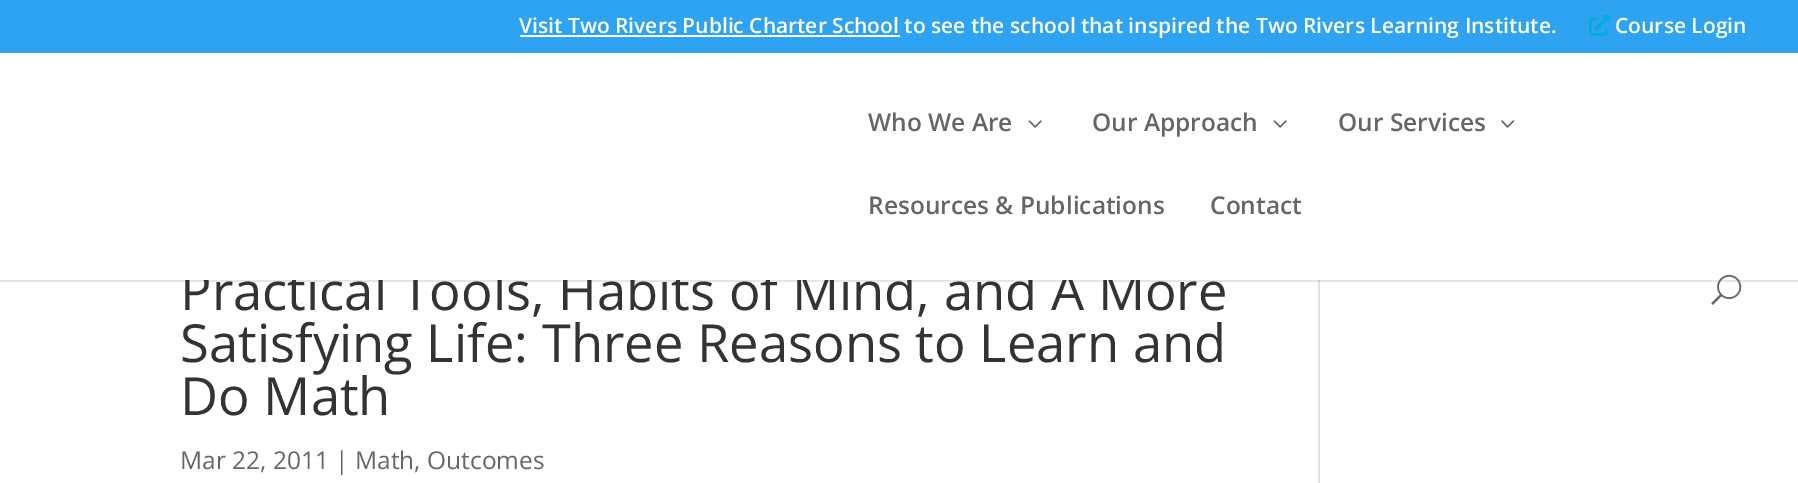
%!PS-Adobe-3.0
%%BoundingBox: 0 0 1798 483
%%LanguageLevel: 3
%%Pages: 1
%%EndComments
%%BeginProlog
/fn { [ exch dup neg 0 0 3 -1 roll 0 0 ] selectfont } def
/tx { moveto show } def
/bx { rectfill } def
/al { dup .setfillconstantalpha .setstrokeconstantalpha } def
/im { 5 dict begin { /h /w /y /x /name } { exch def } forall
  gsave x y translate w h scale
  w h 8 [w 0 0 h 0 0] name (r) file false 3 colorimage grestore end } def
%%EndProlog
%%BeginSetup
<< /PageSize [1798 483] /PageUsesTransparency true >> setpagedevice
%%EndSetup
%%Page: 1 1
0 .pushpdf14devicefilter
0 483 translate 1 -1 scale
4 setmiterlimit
1 setgray
0 0 1798 483 bx
0.18 0.639 0.949 setrgbcolor
0 0 1798 53 bx
1 setgray
520 35 380 2 bx
/OpenSans-SemiBold 21 fn
(Visit Two Rivers Public Charter School to see the school that inspired the Two Rivers Learning Institute.) 519 33 tx
(image0.raw) 1589 14 21 22 im
(Course Login) 1615 33 tx
0.886 setgray
1318 280 2 203 bx
0.1 al
0 setgray
0 280 1798 2 bx
/OpenSans-Regular 52.5 fn
1 al
0.2 setgray
(Practical Tools, Habits of Mind, and A More) 180 310 tx
1 setgray
185 269 955 11 bx
/OpenSans-SemiBold 24.5 fn
0.4 setgray
(Who We Are) 868 131 tx
(image1.raw) 1028 120 14 8 im
(Our Approach) 1092 131 tx
(image1.raw) 1273 120 14 8 im
(Our Services) 1338 131 tx
(image2.raw) 1501 120 14 8 im
(Resources & Publications) 868 214 tx
(Contact) 1210 214 tx
(image3.raw) 1711 274 31 31 im
/OpenSans-Regular 52.5 fn
0.2 setgray
(Satisfying Life: Three Reasons to Learn and) 180 362 tx
(Do Math) 180 415 tx
/OpenSans-Regular 24.5 fn
0.4 setgray
(Mar 22, 2011 | Math, Outcomes) 180 469 tx
.poppdf14devicefilter showpage
%%EOF
